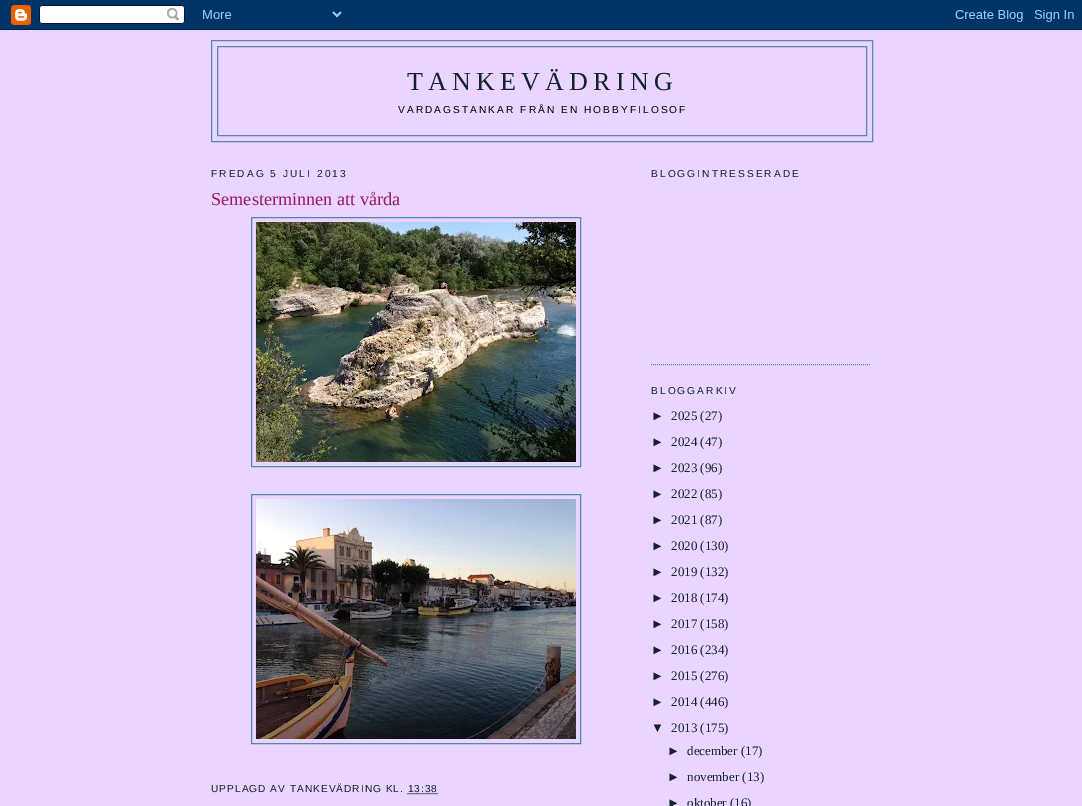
%!PS-Adobe-3.0
%%BoundingBox: 0 0 1082 806
%%LanguageLevel: 3
%%Pages: 1
%%EndComments
%%BeginProlog
/m { moveto } bind def
/l { lineto } bind def
/S { stroke } bind def
/fn { [ exch dup neg 0 0 3 -1 roll 0 0 ] selectfont } def
/tx { moveto show } def
/bx { rectfill } def
/im { 5 dict begin { /h /w /y /x /name } { exch def } forall
  gsave x y translate w h scale
  w h 8 [w 0 0 h 0 0] name (r) file false 3 colorimage grestore end } def
%%EndProlog
%%BeginSetup
<< /PageSize [1082 806] >> setpagedevice
%%EndSetup
%%Page: 1 1
0 806 translate 1 -1 scale
4 setmiterlimit
0.914 0.835 1 setrgbcolor
0 0 1082 806 bx
(image0.raw) 0 0 1082 30 im
0.325 0.529 0.671 setrgbcolor
211.5 40.5 661 101 rectstroke
217.5 46.5 649 89 rectstroke
/LiberationSerif-Regular 26 fn
0.082 0.133 0.169 setrgbcolor
407 90 m 5.25 0 (TANKEVÄDRING) ashow
/LiberationSans-Regular 10.15 fn
0 setgray
398 113 m 2.05 0 (VARDAGSTANKAR FRÅN EN HOBBYFILOSOF) ashow
0.082 0.133 0.169 setrgbcolor
211 177 m 2.05 0 (FREDAG 5 JULI 2013) ashow
/LiberationSerif-Regular 18.25 fn
0.616 0.098 0.38 setrgbcolor
(Semesterminnen att vårda) 211 205 tx
0.325 0.529 0.671 setrgbcolor
251.5 217.5 329 249 rectstroke
(image1.raw) 256 222 320 240 im
251.5 494.5 329 249 rectstroke
(image2.raw) 256 499 320 240 im
/LiberationSans-Regular 10.15 fn
0.082 0.133 0.169 setrgbcolor
211 792 m 1 0 (UPPLAGD AV TANKEVÄDRING KL. 13:38) ashow
[1 1] 0 setdash
407.5 793.5 m 438 793.5 l S
0.325 0.529 0.671 setrgbcolor
651 364.5 m 871 364.5 l S
0.082 0.133 0.169 setrgbcolor
651 177 m 2.05 0 (BLOGGINTRESSERADE) ashow
651 394 m 2.05 0 (BLOGGARKIV) ashow
/LiberationSans-Regular 13 fn
(►) 651 420 tx
/LiberationSerif-Regular 13 fn
(2025 \(27\)) 671 420 tx
/LiberationSans-Regular 13 fn
(►) 651 446 tx
/LiberationSerif-Regular 13 fn
(2024 \(47\)) 671 446 tx
/LiberationSans-Regular 13 fn
(►) 651 472 tx
/LiberationSerif-Regular 13 fn
(2023 \(96\)) 671 472 tx
/LiberationSans-Regular 13 fn
(►) 651 498 tx
/LiberationSerif-Regular 13 fn
(2022 \(85\)) 671 498 tx
/LiberationSans-Regular 13 fn
(►) 651 524 tx
/LiberationSerif-Regular 13 fn
(2021 \(87\)) 671 524 tx
/LiberationSans-Regular 13 fn
(►) 651 550 tx
/LiberationSerif-Regular 13 fn
(2020 \(130\)) 671 550 tx
/LiberationSans-Regular 13 fn
(►) 651 576 tx
/LiberationSerif-Regular 13 fn
(2019 \(132\)) 671 576 tx
/LiberationSans-Regular 13 fn
(►) 651 602 tx
/LiberationSerif-Regular 13 fn
(2018 \(174\)) 671 602 tx
/LiberationSans-Regular 13 fn
(►) 651 628 tx
/LiberationSerif-Regular 13 fn
(2017 \(158\)) 671 628 tx
/LiberationSans-Regular 13 fn
(►) 651 654 tx
/LiberationSerif-Regular 13 fn
(2016 \(234\)) 671 654 tx
/LiberationSans-Regular 13 fn
(►) 651 680 tx
/LiberationSerif-Regular 13 fn
(2015 \(276\)) 671 680 tx
/LiberationSans-Regular 13 fn
(►) 651 706 tx
/LiberationSerif-Regular 13 fn
(2014 \(446\)) 671 706 tx
/LiberationSans-Regular 13 fn
(▼) 651 732 tx
/LiberationSerif-Regular 13 fn
(2013 \(175\)) 671 732 tx
/LiberationSans-Regular 13 fn
(►) 667 755 tx
/LiberationSerif-Regular 13 fn
(december \(17\)) 687 755 tx
/LiberationSans-Regular 13 fn
(►) 667 781 tx
/LiberationSerif-Regular 13 fn
(november \(13\)) 687 781 tx
/LiberationSans-Regular 13 fn
(►) 667 807 tx
/LiberationSerif-Regular 13 fn
(oktober \(16\)) 687 807 tx
showpage
%%EOF
